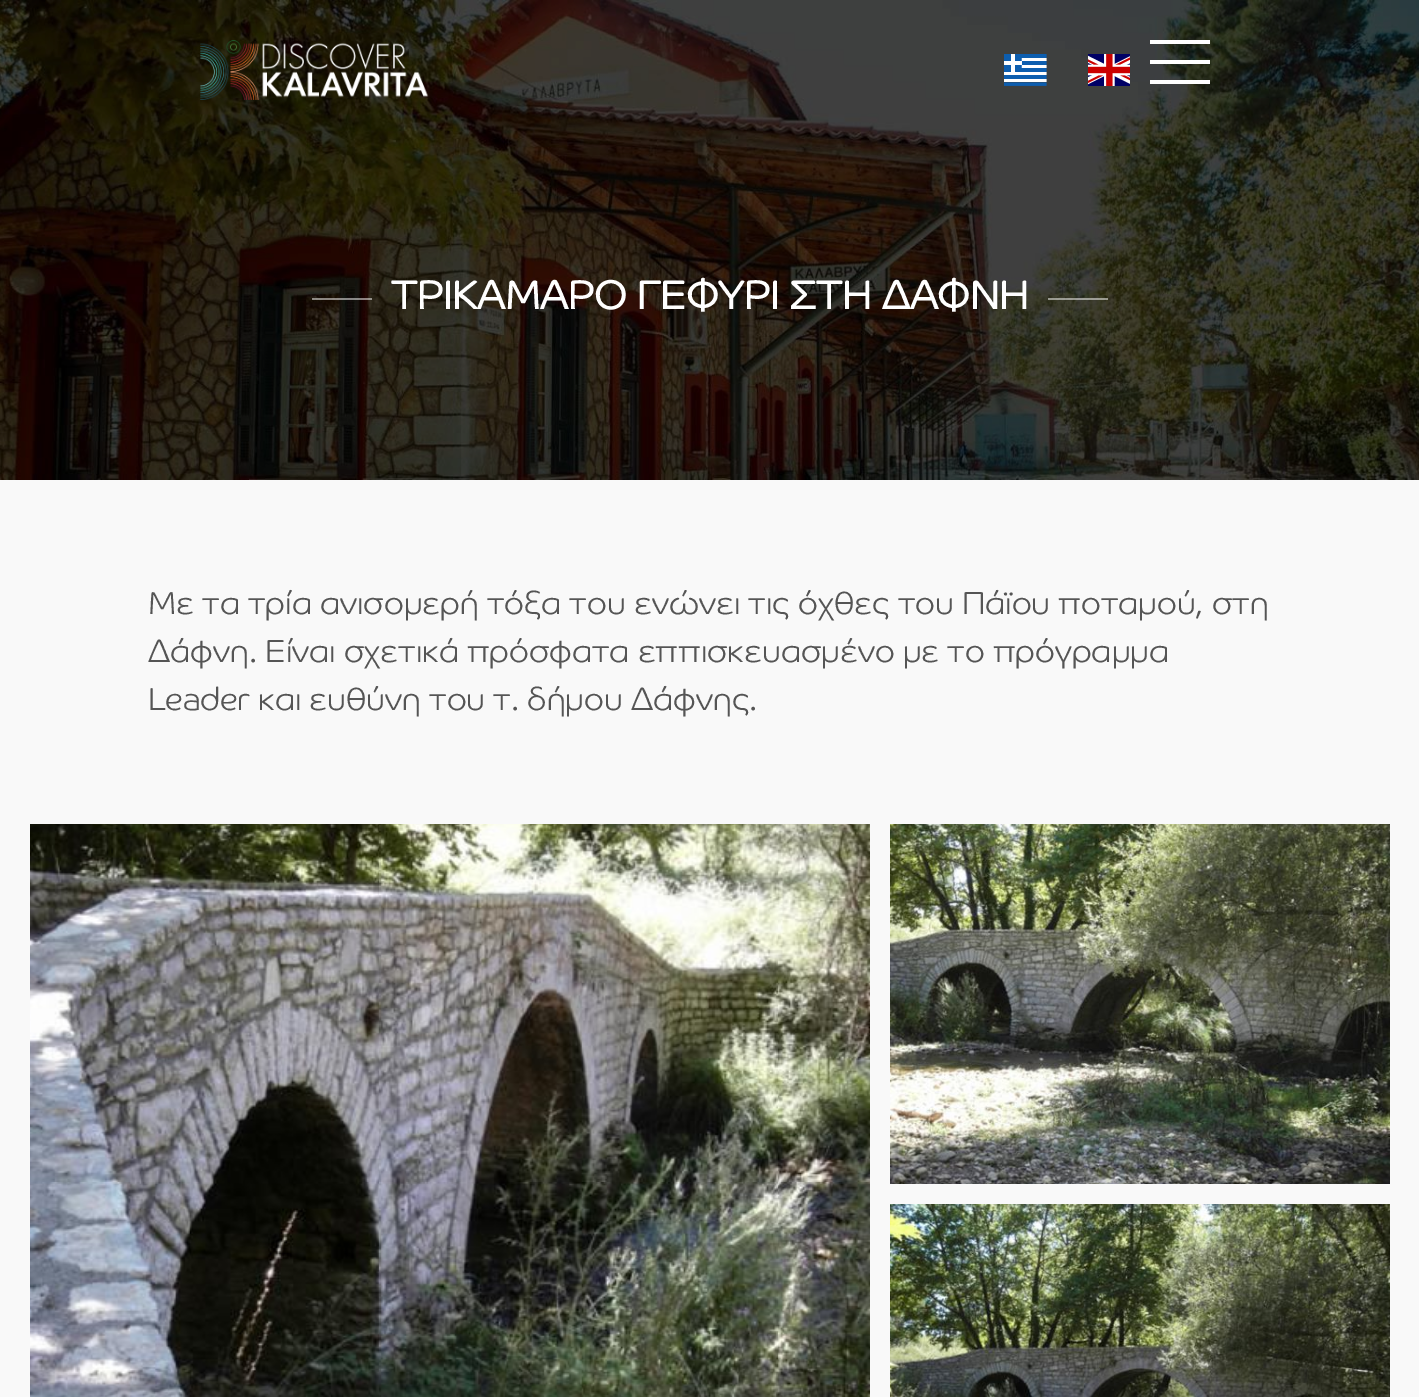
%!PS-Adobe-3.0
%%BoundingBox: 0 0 1419 1397
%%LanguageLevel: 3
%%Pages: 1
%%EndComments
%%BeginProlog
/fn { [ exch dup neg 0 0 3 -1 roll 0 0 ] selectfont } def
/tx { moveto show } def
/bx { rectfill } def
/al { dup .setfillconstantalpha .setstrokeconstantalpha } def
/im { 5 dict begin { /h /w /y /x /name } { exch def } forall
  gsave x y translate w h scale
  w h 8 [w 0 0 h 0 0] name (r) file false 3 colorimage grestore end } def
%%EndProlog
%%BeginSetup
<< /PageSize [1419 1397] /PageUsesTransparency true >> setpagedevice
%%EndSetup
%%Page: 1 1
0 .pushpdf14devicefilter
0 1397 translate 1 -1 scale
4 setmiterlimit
0.976 setgray
0 0 1419 1397 bx
(image0.raw) 0 0 1419 480 im
(image1.raw) 200 40 229 60 im
(image2.raw) 1004 54 43 32 im
(image3.raw) 1088 54 42 32 im
1 setgray
1150 60 60 4 bx
1150 40 60 4 bx
1150 80 60 4 bx
0.5 al
312 298 60 2 bx
/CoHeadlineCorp-Bold 40 fn
1 al
(ΤΡΙΚΑΜΑΡΟ ΓΕΦΥΡΙ ΣΤΗ ΔΑΦΝΗ) 391 309 tx
0.5 al
1048 298 60 2 bx
/CoHeadlineCorp-Light 32 fn
1 al
0.333 setgray
(Με τα τρία ανισομερή τόξα του ενώνει τις όχθες του Πάϊου ποταμού, στη) 148 614 tx
(Δάφνη. Είναι σχετικά πρόσφατα εππισκευασμένο με το πρόγραμμα) 148 662 tx
(Leader και ευθύνη του τ. δήμου Δάφνης.) 148 710 tx
(image4.raw) 30 824 840 573 im
(image5.raw) 890 824 500 360 im
(image6.raw) 890 1204 500 193 im
.poppdf14devicefilter showpage
%%EOF
